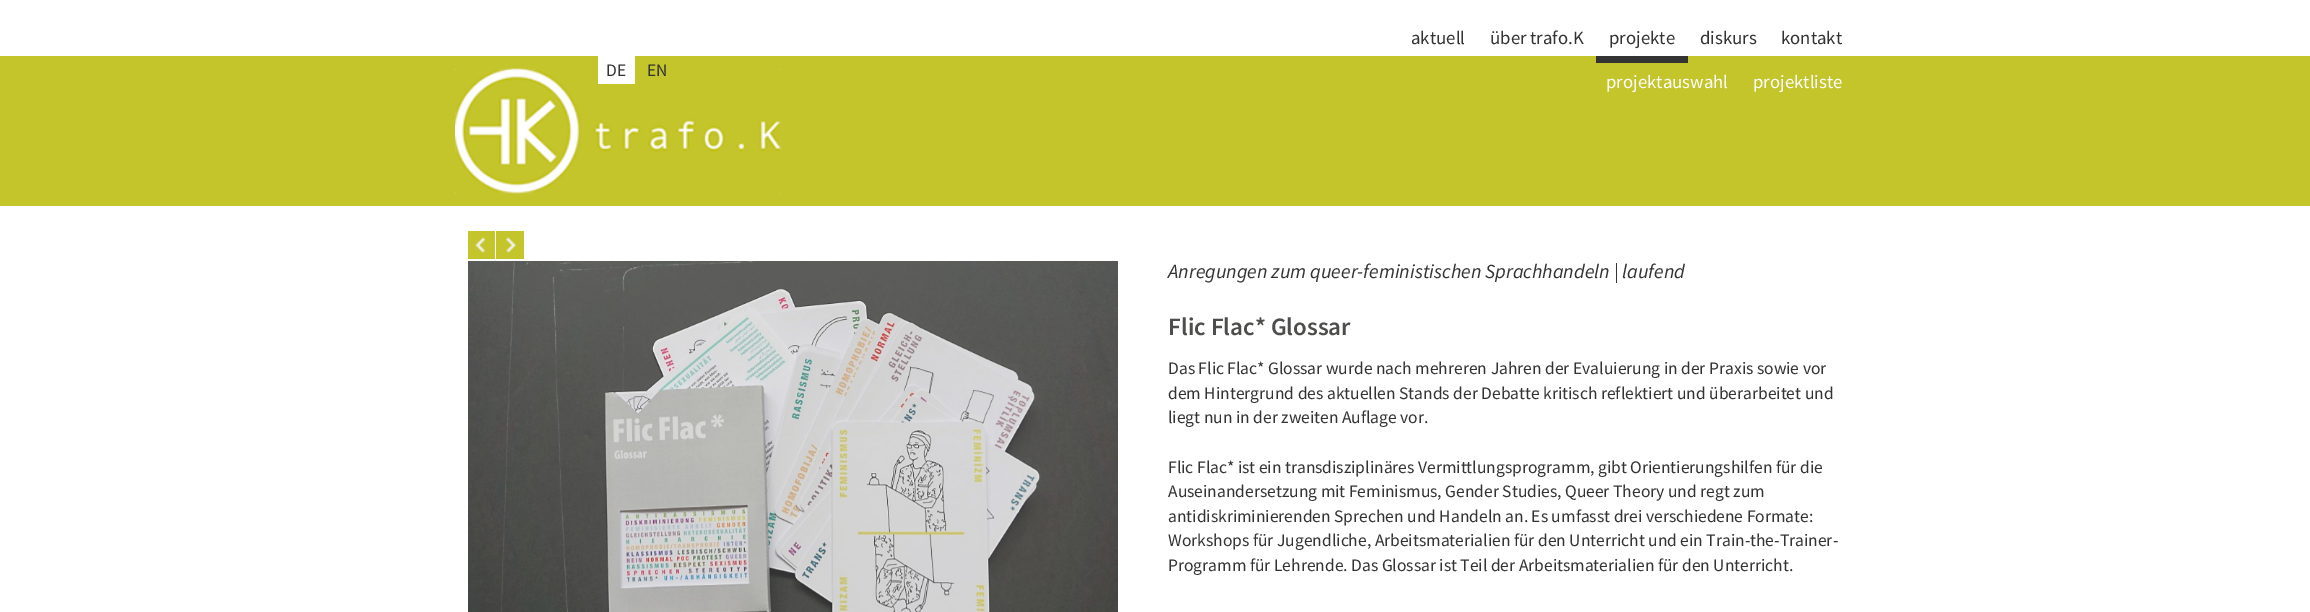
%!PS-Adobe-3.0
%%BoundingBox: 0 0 2310 612
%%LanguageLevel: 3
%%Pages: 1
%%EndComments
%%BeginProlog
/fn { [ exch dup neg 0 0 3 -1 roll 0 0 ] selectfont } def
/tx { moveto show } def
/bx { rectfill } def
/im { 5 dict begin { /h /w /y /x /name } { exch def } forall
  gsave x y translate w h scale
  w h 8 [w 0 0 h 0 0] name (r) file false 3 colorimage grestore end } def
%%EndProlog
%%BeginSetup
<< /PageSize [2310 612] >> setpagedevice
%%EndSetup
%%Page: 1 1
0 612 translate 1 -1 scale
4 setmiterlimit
0.769 0.769 0.169 setrgbcolor
0 0 2310 612 bx
(image0.raw) 455 68 327 126 im
1 setgray
598 56 37 28 bx
/SourceSansPro-Regular 17.5 fn
0.2 setgray
(DE) 606 76 tx
(EN) 647 76 tx
1 setgray
0 0 2310 56 bx
/SourceSansPro-Regular 18.75 fn
0.2 setgray
(aktuell) 1411 44 tx
(über trafo.K) 1490 44 tx
1596 56 92 7 bx
(projekte) 1609 44 tx
1 setgray
(projektauswahl) 1606 88 tx
(projektliste) 1753 88 tx
0.2 setgray
(diskurs) 1700 44 tx
(kontakt) 1781 44 tx
1 setgray
0 206 2310 406 bx
0.769 0.769 0.169 setrgbcolor
468 231 27 28 bx
(image1.raw) 475 237 11 16 im
496 231 28 28 bx
(image2.raw) 506 237 11 16 im
(image3.raw) 468 261 650 351 im
/SourceSansPro-Italic 20 fn
0.2 setgray
(Anregungen zum queer-feministischen Sprachhandeln | laufend) 1168 278 tx
/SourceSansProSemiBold-SemiBold 25 fn
0.302 0.302 0.294 setrgbcolor
(Flic Flac* Glossar) 1168 335 tx
/SourceSansPro-Regular 17.5 fn
0.2 setgray
(Das Flic Flac* Glossar wurde nach mehreren Jahren der Evaluierung in der Praxis sowie vor) 1168 374 tx
(dem Hintergrund des aktuellen Stands der Debatte kritisch reflektiert und überarbeitet und) 1168 399 tx
(liegt nun in der zweiten Auflage vor.) 1168 423 tx
(Flic Flac* ist ein transdisziplinäres Vermittlungsprogramm, gibt Orientierungshilfen für die) 1168 473 tx
(Auseinandersetzung mit Feminismus, Gender Studies, Queer Theory und regt zum) 1168 497 tx
(antidiskriminierenden Sprechen und Handeln an. Es umfasst drei verschiedene Formate:) 1168 522 tx
(Workshops für Jugendliche, Arbeitsmaterialien für den Unterricht und ein Train-the-Trainer-) 1168 546 tx
(Programm für Lehrende. Das Glossar ist Teil der Arbeitsmaterialien für den Unterricht.) 1168 571 tx
showpage
%%EOF
